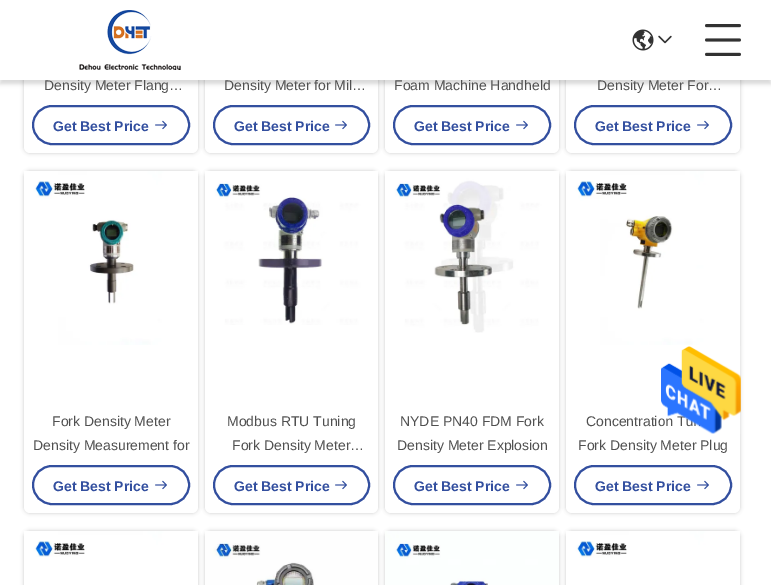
%!PS-Adobe-3.0
%%BoundingBox: 0 0 771 585
%%LanguageLevel: 3
%%Pages: 1
%%EndComments
%%BeginProlog
/f { fill } bind def
/S { stroke } bind def
/w { setlinewidth } bind def
/fn { [ exch dup neg 0 0 3 -1 roll 0 0 ] selectfont } def
/tx { moveto show } def
/bx { rectfill } def
/al { dup .setfillconstantalpha .setstrokeconstantalpha } def
/rr { 5 dict begin { /r /h /w /y /x } { exch def } forall
  x r add y moveto x w add y 2 copy h add r arct x w add y h add x 1 index r arct
  x y h add x y r arct x y 2 copy exch w add exch r arct closepath end } def
/sh { 12 dict begin { /a /b /q /h /w /y /x } { exch def } forall gsave /was 0 def
  9 -2 -9 { dup b mul 4 div /e exch def 1 sub .425 mul 2.718 exch exp 1 add a .99 .min exch div /now exch def
    1 1 now sub 1 was sub div sub al /was now def
    w h .min e 2 mul add 0 gt { x e sub y e sub w e 2 mul add h e 2 mul add
      q e add b .6 mul add w h .min 2 div e add .min 0 .max rr fill } if } for grestore end } def
/im { 5 dict begin { /h /w /y /x /name } { exch def } forall
  gsave x y translate w h scale
  w h 8 [w 0 0 h 0 0] name (r) file false 3 colorimage grestore end } def
%%EndProlog
%%BeginSetup
<< /PageSize [771 585] /PageUsesTransparency true >> setpagedevice
%%EndSetup
%%Page: 1 1
0 .pushpdf14devicefilter
0 585 translate 1 -1 scale
4 setmiterlimit
1 setgray
0 0 771 585 bx
0 setgray
24 -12 174 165 6 2 0.2 sh
1 setgray
24 -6 174 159 6 rr f
0 setgray
205 -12 173 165 6 2 0.2 sh
1 setgray
205 -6 173 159 6 rr f
0 setgray
385 -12 174 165 6 2 0.2 sh
1 setgray
385 -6 174 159 6 rr f
0 setgray
566 -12 174 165 6 2 0.2 sh
1 setgray
566 -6 174 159 6 rr f
0 setgray
0 4 771 80 0 2 0.15 sh
/LiberationSans-Regular 14 fn
0.314 setgray
(Density Meter Flang…) 44 90 tx
(Density Meter for Mil…) 224 90 tx
(Foam Machine Handheld) 394 90 tx
(Density Meter For…) 597 90 tx
1 setgray
0 0 771 80 bx
(image0.raw) 79 10 102 60 im
(image1.raw) 632 29 22 22 im
(image2.raw) 658 35 14 9 im
(image3.raw) 705 24 36 32 im
0.2 0.31 0.624 setrgbcolor
2 w
33 106 156 38 19 rr S
/LiberationSans-Bold 14 fn
(Get Best Price) 53 131 tx
(image4.raw) 155 120 12 10 im
214 106 155 38 19 rr S
(Get Best Price) 234 131 tx
(image4.raw) 335 120 12 10 im
394 106 156 38 19 rr S
(Get Best Price) 414 131 tx
(image4.raw) 516 120 12 10 im
575 106 156 38 19 rr S
(Get Best Price) 595 131 tx
(image4.raw) 697 120 12 10 im
0 setgray
24 171 174 342 6 2 0.2 sh
1 setgray
24 171 174 342 6 rr f
(image5.raw) 24 171 174 174 im
/LiberationSans-Regular 14 fn
0.314 setgray
(Fork Density Meter) 52 426 tx
(Density Measurement for) 33 450 tx
0.2 0.31 0.624 setrgbcolor
33 466 156 38 19 rr S
/LiberationSans-Bold 14 fn
(Get Best Price) 53 491 tx
(image4.raw) 155 480 12 10 im
0 setgray
205 171 173 342 6 2 0.2 sh
1 setgray
205 171 173 342 6 rr f
(image6.raw) 205 171 173 154 im
/LiberationSans-Regular 14 fn
0.314 setgray
(Modbus RTU Tuning) 227 426 tx
(Fork Density Meter…) 232 450 tx
0.2 0.31 0.624 setrgbcolor
214 466 155 38 19 rr S
/LiberationSans-Bold 14 fn
(Get Best Price) 234 491 tx
(image4.raw) 335 480 12 10 im
0 setgray
385 171 174 342 6 2 0.2 sh
1 setgray
385 171 174 342 6 rr f
(image7.raw) 385 171 174 162 im
/LiberationSans-Regular 14 fn
0.314 setgray
(NYDE PN40 FDM Fork) 400 426 tx
(Density Meter Explosion) 397 450 tx
0.2 0.31 0.624 setrgbcolor
394 466 156 38 19 rr S
/LiberationSans-Bold 14 fn
(Get Best Price) 414 491 tx
(image4.raw) 516 480 12 10 im
0 setgray
566 171 174 342 6 2 0.2 sh
1 setgray
566 171 174 342 6 rr f
(image8.raw) 566 171 174 174 im
/LiberationSans-Regular 14 fn
0.314 setgray
(Concentration Tu) 586 426 tx
(Fork Density Meter Plug) 578 450 tx
0.2 0.31 0.624 setrgbcolor
575 466 156 38 19 rr S
/LiberationSans-Bold 14 fn
(Get Best Price) 595 491 tx
(image4.raw) 697 480 12 10 im
0 setgray
24 531 174 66 6 2 0.2 sh
1 setgray
24 557 174 28 bx
(image9.raw) 24 531 174 26 im
0 setgray
205 531 173 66 6 2 0.2 sh
(image10.raw) 205 531 173 54 im
385 531 174 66 6 2 0.2 sh
(image11.raw) 385 531 174 54 im
566 531 174 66 6 2 0.2 sh
1 setgray
566 558 174 27 bx
(image12.raw) 566 531 174 27 im
(image13.raw) 661 346 80 88 im
.poppdf14devicefilter showpage
%%EOF
